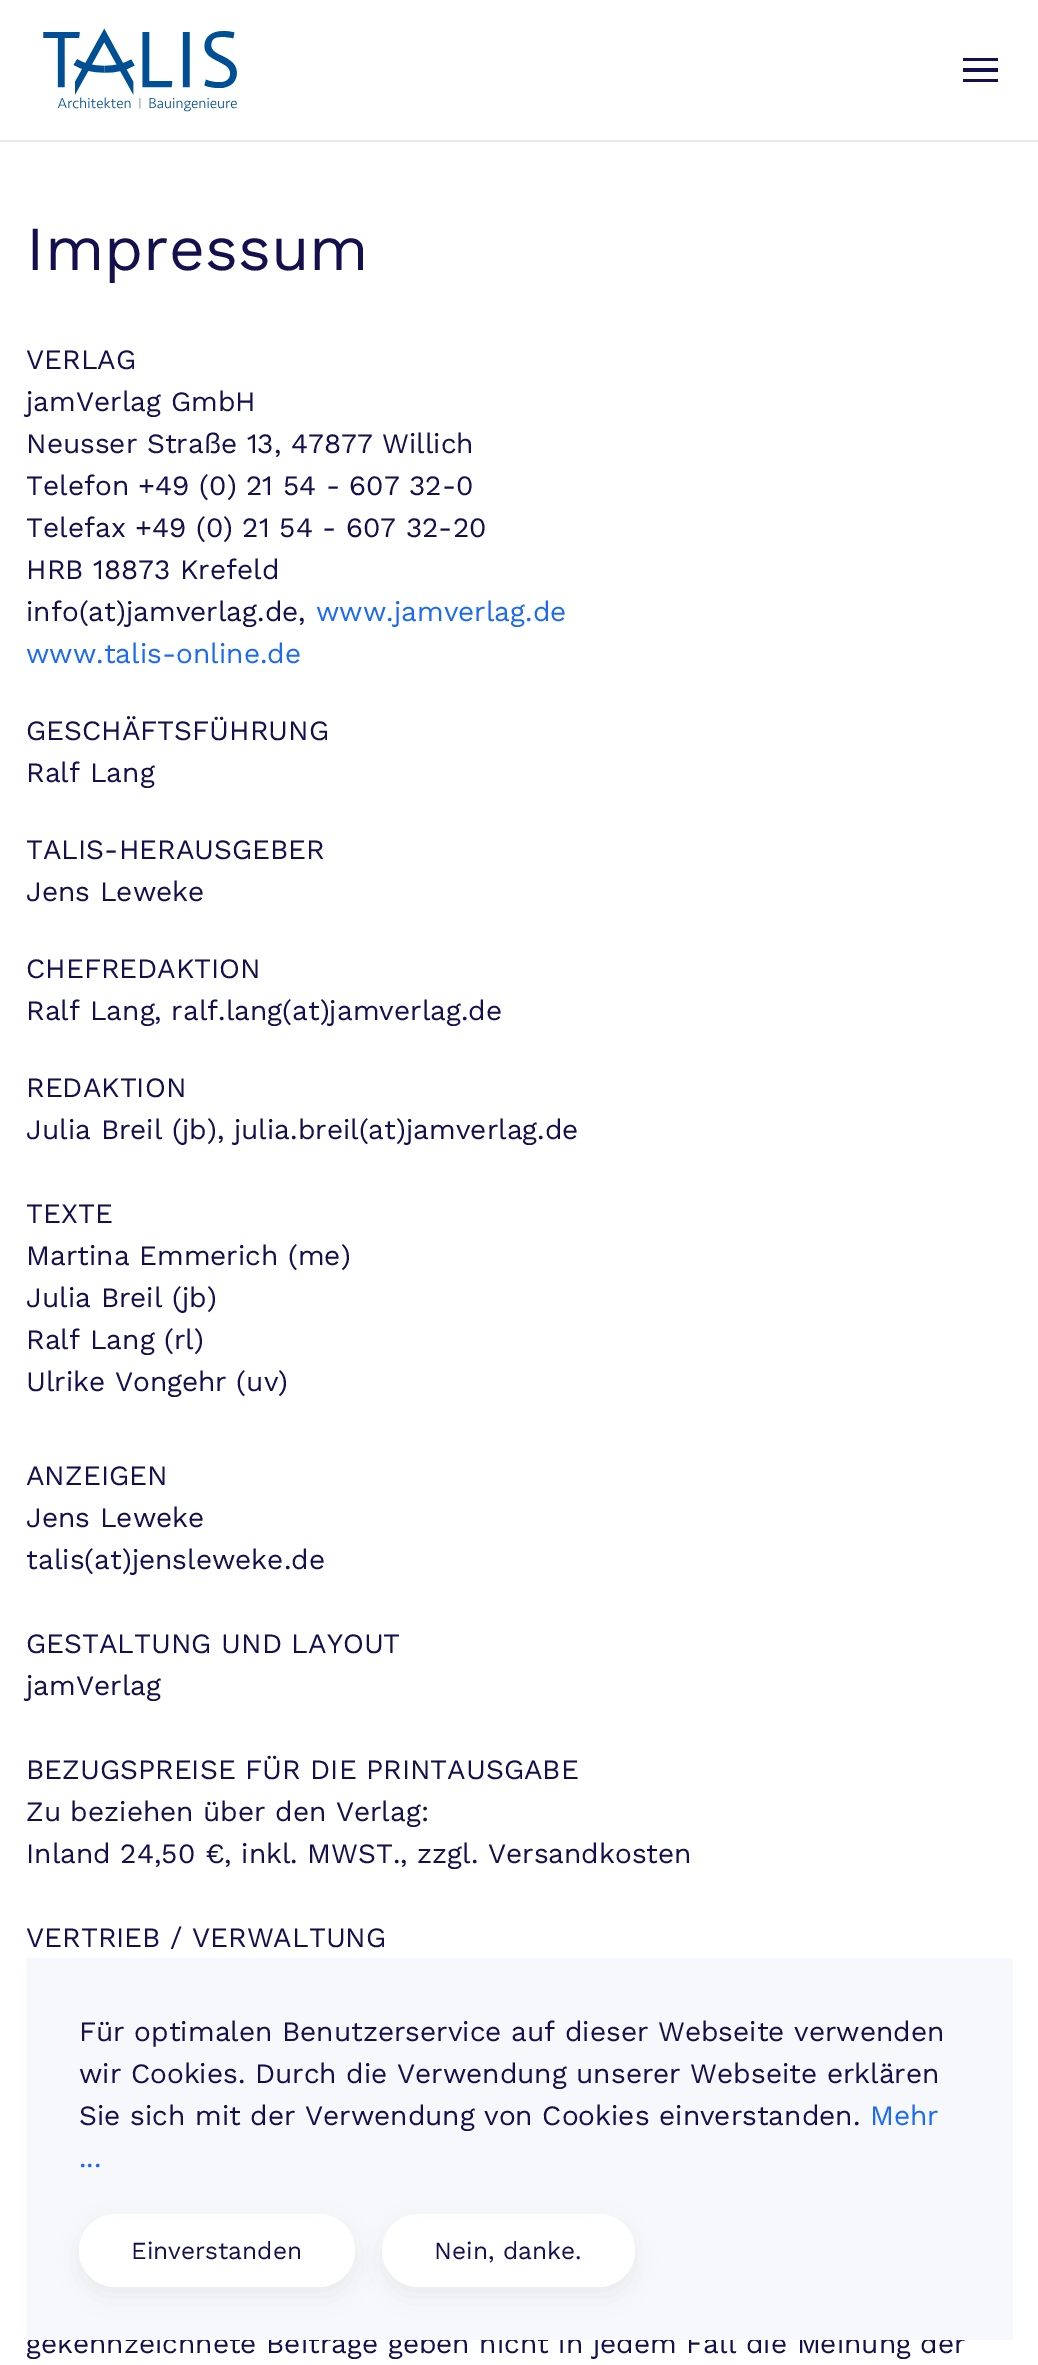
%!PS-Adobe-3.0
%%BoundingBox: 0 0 1038 2365
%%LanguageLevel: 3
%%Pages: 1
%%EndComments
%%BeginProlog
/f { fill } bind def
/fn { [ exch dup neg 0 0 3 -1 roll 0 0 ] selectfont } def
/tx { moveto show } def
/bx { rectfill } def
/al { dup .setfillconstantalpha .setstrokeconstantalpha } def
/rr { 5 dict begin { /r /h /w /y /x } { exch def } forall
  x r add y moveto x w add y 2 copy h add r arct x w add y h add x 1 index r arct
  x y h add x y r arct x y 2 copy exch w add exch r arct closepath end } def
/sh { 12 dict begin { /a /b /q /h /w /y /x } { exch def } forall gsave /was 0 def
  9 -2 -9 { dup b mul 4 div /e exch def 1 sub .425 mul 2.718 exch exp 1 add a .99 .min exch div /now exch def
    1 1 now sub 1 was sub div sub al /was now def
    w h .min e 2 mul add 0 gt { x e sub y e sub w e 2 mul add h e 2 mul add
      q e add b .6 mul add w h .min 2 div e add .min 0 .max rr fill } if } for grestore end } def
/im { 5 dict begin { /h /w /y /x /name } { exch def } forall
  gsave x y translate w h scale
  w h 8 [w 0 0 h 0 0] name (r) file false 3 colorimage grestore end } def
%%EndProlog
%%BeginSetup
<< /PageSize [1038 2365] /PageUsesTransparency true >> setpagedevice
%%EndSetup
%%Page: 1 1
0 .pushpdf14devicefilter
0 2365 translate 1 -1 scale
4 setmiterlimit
1 setgray
0 0 1038 2365 bx
0.906 0.91 0.922 setrgbcolor
0 140 1038 2 bx
(image0.raw) 43 28 194 84 im
0.078 0.059 0.302 setrgbcolor
963 58 35 3 bx
963 68 35 4 bx
963 79 35 3 bx
/WorkSans-Regular 62.5 fn
(Impressum) 26 270 tx
/WorkSans-Regular 28 fn
(VERLAG) 26 369 tx
(jamVerlag GmbH) 26 411 tx
(Neusser Straße 13, 47877 Willich) 26 453 tx
(Telefon +49 \(0\) 21 54 - 607 32-0) 26 495 tx
(Telefax +49 \(0\) 21 54 - 607 32-20) 26 537 tx
(HRB 18873 Krefeld) 26 579 tx
(info\(at\)jamverlag.de,) 26 621 tx
0.106 0.412 0.957 setrgbcolor
(www.jamverlag.de) 316 621 tx
(www.talis-online.de) 26 663 tx
0.078 0.059 0.302 setrgbcolor
(GESCHÄFTSFÜHRUNG) 26 740 tx
(Ralf Lang) 26 782 tx
(TALIS-HERAUSGEBER) 26 859 tx
(Jens Leweke) 26 901 tx
(CHEFREDAKTION) 26 978 tx
(Ralf Lang, ralf.lang\(at\)jamverlag.de) 26 1020 tx
(REDAKTION) 26 1097 tx
(Julia Breil \(jb\), julia.breil\(at\)jamverlag.de) 26 1139 tx
(TEXTE) 26 1223 tx
(Martina Emmerich \(me\)) 26 1265 tx
(Julia Breil \(jb\)) 26 1307 tx
(Ralf Lang \(rl\)) 26 1349 tx
(Ulrike Vongehr \(uv\)) 26 1391 tx
(ANZEIGEN) 26 1485 tx
(Jens Leweke) 26 1527 tx
(talis\(at\)jensleweke.de) 26 1569 tx
(GESTALTUNG UND LAYOUT) 26 1653 tx
(jamVerlag) 26 1695 tx
(BEZUGSPREISE FÜR DIE PRINTAUSGABE) 26 1779 tx
(Zu beziehen über den Verlag:) 26 1821 tx
(Inland 24,50 €, inkl. MWST., zzgl. Versandkosten) 26 1863 tx
(VERTRIEB / VERWALTUNG) 26 1947 tx
(gekennzeichnete Beiträge geben nicht in jedem Fall die Meinung der) 26 2353 tx
0.965 0.973 0.984 setrgbcolor
26 1958 987 382 bx
0.078 0.059 0.302 setrgbcolor
(Für optimalen Benutzerservice auf dieser Webseite verwenden) 79 2041 tx
(wir Cookies. Durch die Verwendung unserer Webseite erklären) 79 2083 tx
(Sie sich mit der Verwendung von Cookies einverstanden.) 79 2125 tx
0.106 0.412 0.957 setrgbcolor
(Mehr) 870 2125 tx
(...) 79 2167 tx
0 setgray
79 2223 276 73 36.5 13 0.06 sh
1 setgray
79 2214 276 73 36.5 rr f
/WorkSans-Regular 24.5 fn
0.078 0.059 0.302 setrgbcolor
(Einverstanden) 131 2259 tx
0 setgray
382 2223 253 73 36.5 13 0.06 sh
1 setgray
382 2214 253 73 36.5 rr f
0.078 0.059 0.302 setrgbcolor
(Nein, danke.) 434 2259 tx
.poppdf14devicefilter showpage
%%EOF
